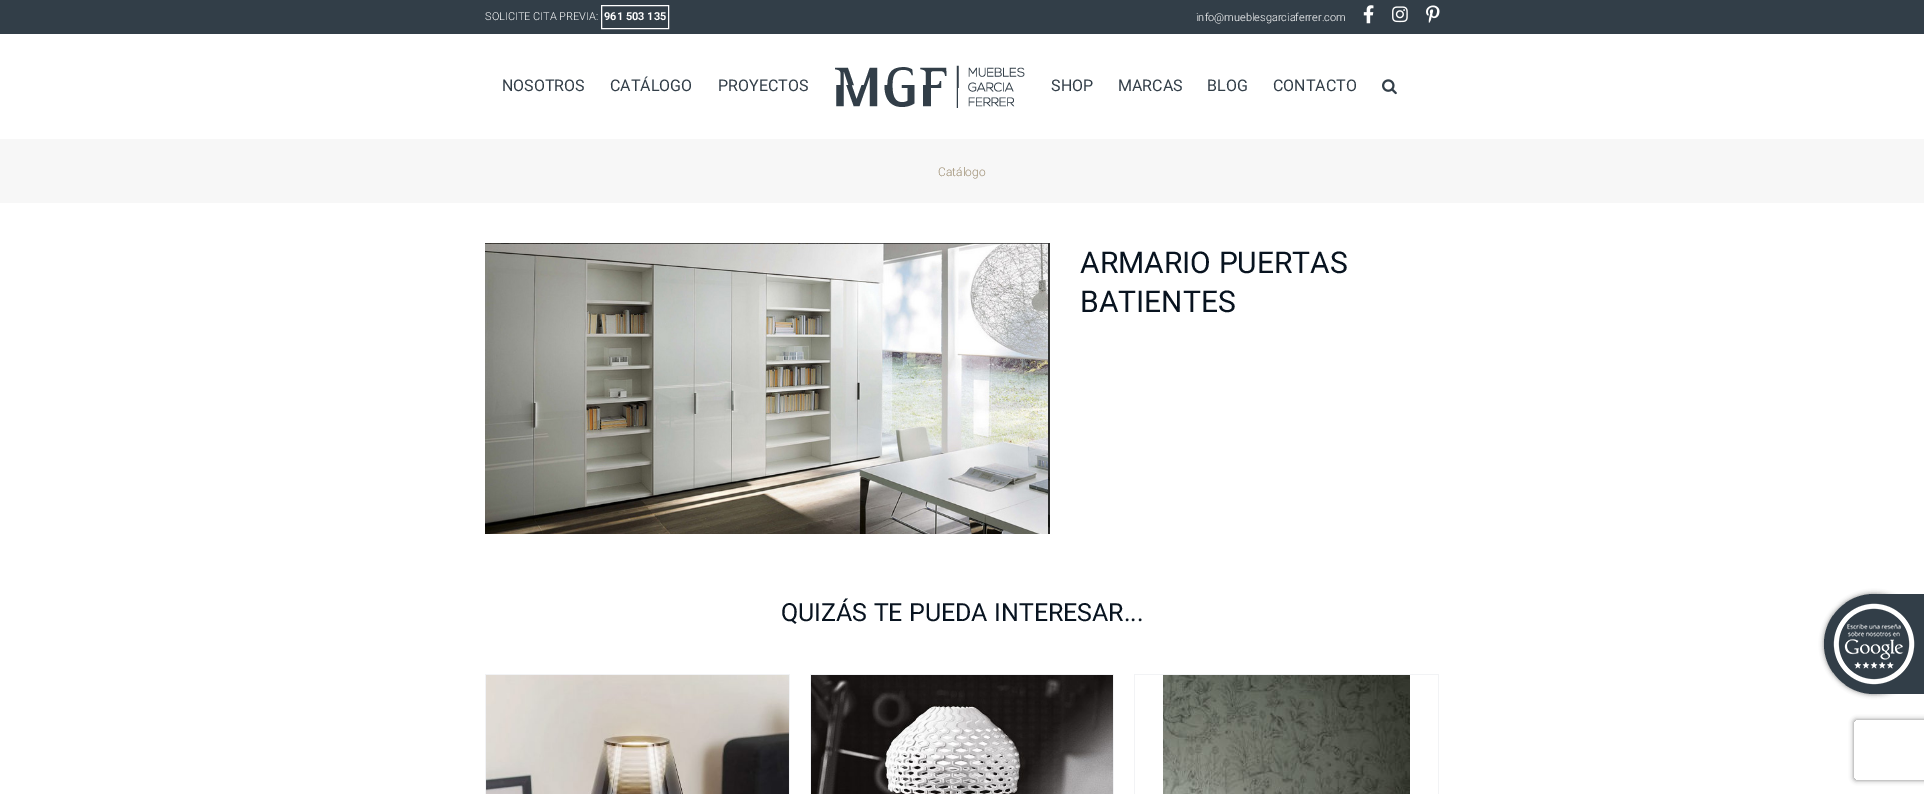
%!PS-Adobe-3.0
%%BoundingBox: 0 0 1924 794
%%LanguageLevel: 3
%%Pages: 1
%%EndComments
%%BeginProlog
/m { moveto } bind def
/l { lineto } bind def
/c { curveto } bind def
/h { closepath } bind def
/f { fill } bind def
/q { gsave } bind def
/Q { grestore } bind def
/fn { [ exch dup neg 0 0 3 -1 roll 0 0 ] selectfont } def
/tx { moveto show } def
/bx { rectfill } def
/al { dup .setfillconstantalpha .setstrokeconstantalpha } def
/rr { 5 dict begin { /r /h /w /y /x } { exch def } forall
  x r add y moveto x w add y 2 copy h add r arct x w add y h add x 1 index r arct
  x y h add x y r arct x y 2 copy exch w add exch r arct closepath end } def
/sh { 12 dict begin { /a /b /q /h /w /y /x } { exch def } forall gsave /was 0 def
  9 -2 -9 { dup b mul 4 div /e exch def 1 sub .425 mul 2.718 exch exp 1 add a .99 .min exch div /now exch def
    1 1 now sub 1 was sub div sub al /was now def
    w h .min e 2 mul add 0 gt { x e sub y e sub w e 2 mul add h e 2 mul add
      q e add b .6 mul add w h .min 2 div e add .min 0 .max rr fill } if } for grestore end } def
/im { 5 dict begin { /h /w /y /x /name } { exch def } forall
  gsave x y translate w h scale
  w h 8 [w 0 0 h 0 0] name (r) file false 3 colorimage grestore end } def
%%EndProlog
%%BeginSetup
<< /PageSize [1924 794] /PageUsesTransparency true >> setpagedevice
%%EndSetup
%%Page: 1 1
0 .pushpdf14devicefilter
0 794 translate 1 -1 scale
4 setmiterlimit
1 setgray
0 0 1924 794 bx
0.196 0.243 0.282 setrgbcolor
0 0 1924 34 bx
/Roboto-Light 11 fn
1 setgray
(SOLICITE CITA PREVIA:) 485 20 tx
601.5 5.5 67 23 rectstroke
/Roboto-Bold 11 fn
(961 503 135) 604 20 tx
/Roboto-Light 11 fn
(info@mueblesgarciaferrer.com) 1196 21 tx
(image0.raw) 1363 5 11 19 im
(image1.raw) 1392 6 16 17 im
(image2.raw) 1426 5 14 18 im
/Roboto-Regular 16 fn
0.196 0.243 0.282 setrgbcolor
(NOSOTROS) 502 91 tx
(CATÁLOGO) 610 91 tx
(PROYECTOS) 718 91 tx
(image3.raw) 835 65 190 43 im
(SHOP) 1051 91 tx
(MARCAS) 1118 91 tx
(BLOG) 1207 91 tx
(CONTACTO) 1273 91 tx
(image4.raw) 1382 79 15 16 im
0.969 setgray
0 139 1924 64 bx
/Roboto-Light 12 fn
0.612 0.549 0.439 setrgbcolor
(Catálogo) 938 176 tx
(image5.raw) 485 243 565 291 im
/Roboto-Regular 30 fn
0.031 0.075 0.122 setrgbcolor
(ARMARIO PUERTAS) 1080 273 tx
(BATIENTES) 1080 312 tx
/Roboto-Regular 25 fn
(QUIZÁS TE PUEDA INTERESAR...) 781 621 tx
0.949 0.953 0.961 setrgbcolor
485 674 305 1 bx
789 674 1 120 bx
485 674 1 120 bx
(image6.raw) 486 675 303 119 im
810 674 304 1 bx
1113 674 1 120 bx
810 674 1 120 bx
(image7.raw) 811 675 302 119 im
1134 674 305 1 bx
1438 674 1 120 bx
1134 674 1 120 bx
(image8.raw) 1163 675 247 119 im
0.502 setgray
1824 594 100 100 50 2.5 1 sh
0.196 0.243 0.282 setrgbcolor
1874 594 m 1924 594 l 1924 694 l 1874 694 l 1846.5 694 1824 671.5 1824 644 c 1824 616.5 1846.5 594 1874 594 c h f
(image9.raw) 1833 603 82 82 im
q
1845 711 m 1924 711 l 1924 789 l 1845 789 l h 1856 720 m 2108 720 l 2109 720 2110 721 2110 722 c 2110 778 l 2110 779 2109 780 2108 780 c 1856 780 l 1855 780 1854 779 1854 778 c 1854 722 l 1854 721 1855 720 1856 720 c h eoclip newpath
0.502 setgray
1854 720 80 60 2 2.5 1 sh
Q
.poppdf14devicefilter showpage
%%EOF
